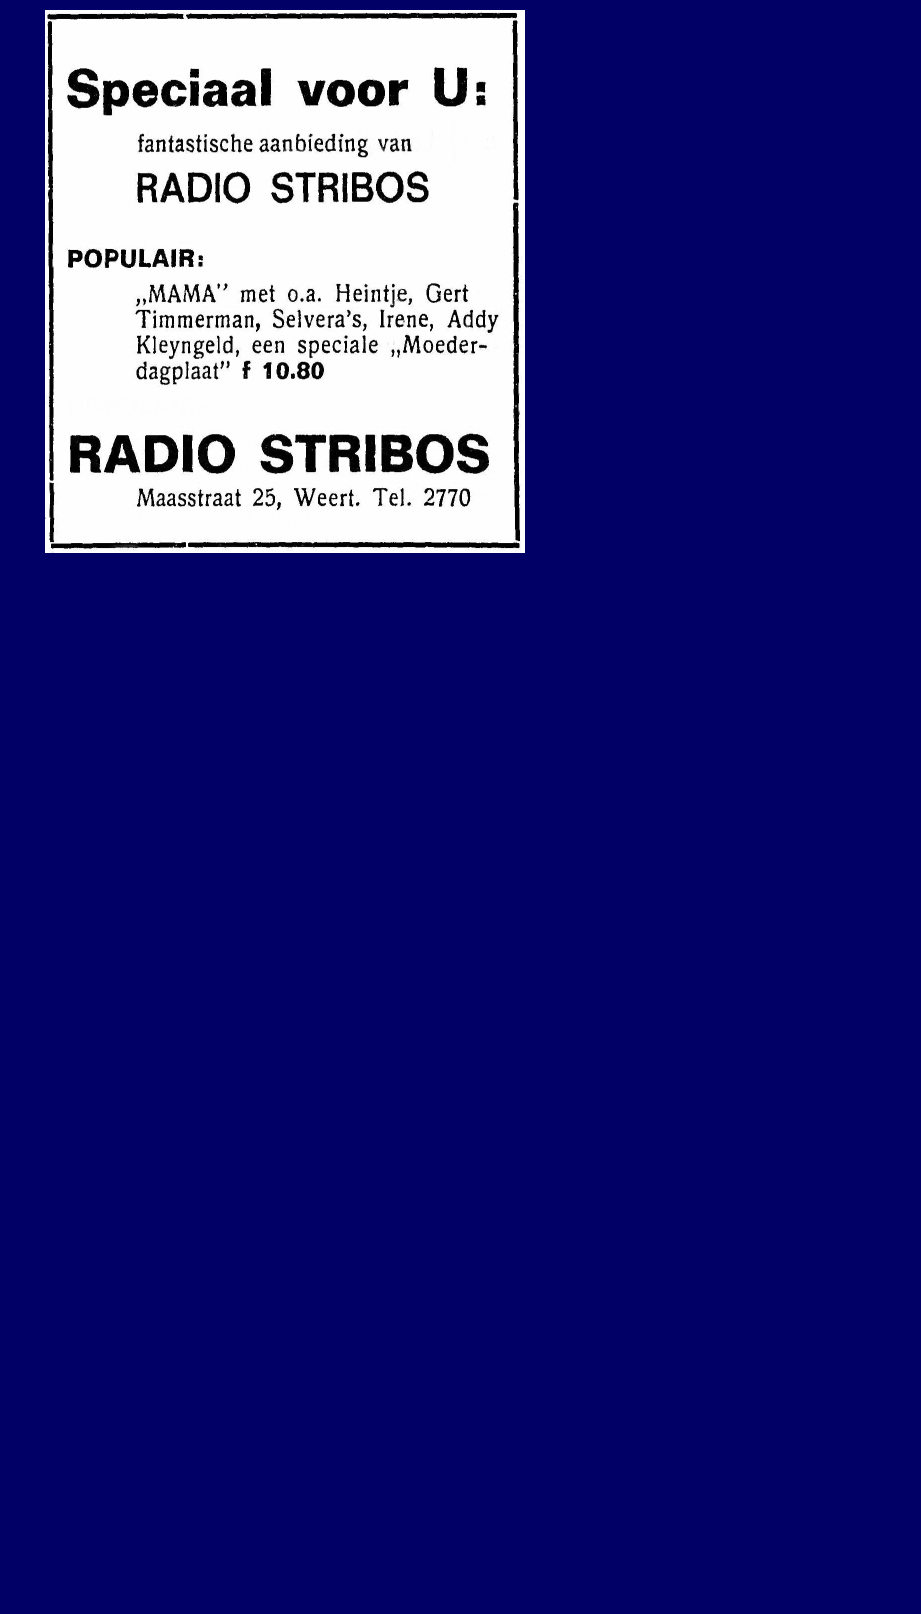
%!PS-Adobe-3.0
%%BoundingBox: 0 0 921 1614
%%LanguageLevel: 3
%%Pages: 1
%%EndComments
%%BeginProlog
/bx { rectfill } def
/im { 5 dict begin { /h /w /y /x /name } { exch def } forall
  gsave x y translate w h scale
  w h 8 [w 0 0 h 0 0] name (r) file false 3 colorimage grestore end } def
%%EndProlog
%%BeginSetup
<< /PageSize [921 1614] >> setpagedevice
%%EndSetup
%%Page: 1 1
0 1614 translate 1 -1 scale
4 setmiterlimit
0 0 0.404 setrgbcolor
0 0 921 1614 bx
(image0.raw) 45 10 480 543 im
showpage
%%EOF
